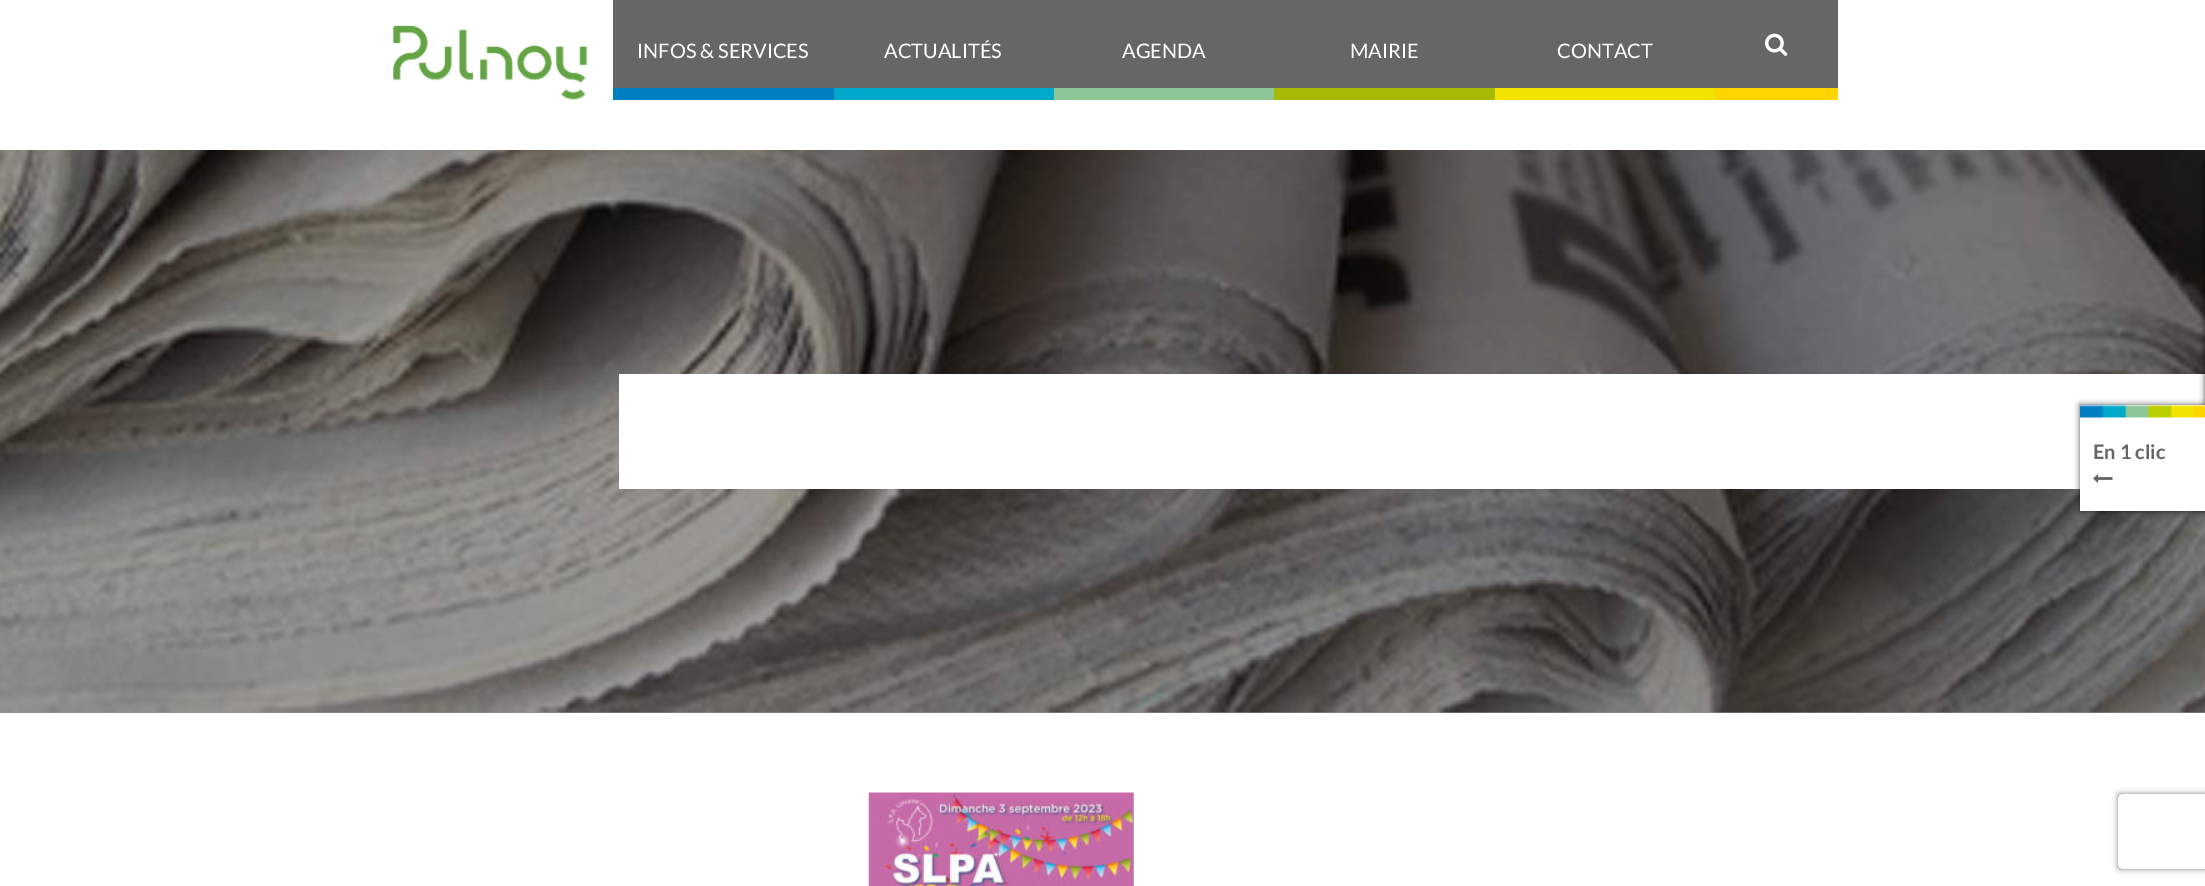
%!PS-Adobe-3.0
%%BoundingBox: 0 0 2205 886
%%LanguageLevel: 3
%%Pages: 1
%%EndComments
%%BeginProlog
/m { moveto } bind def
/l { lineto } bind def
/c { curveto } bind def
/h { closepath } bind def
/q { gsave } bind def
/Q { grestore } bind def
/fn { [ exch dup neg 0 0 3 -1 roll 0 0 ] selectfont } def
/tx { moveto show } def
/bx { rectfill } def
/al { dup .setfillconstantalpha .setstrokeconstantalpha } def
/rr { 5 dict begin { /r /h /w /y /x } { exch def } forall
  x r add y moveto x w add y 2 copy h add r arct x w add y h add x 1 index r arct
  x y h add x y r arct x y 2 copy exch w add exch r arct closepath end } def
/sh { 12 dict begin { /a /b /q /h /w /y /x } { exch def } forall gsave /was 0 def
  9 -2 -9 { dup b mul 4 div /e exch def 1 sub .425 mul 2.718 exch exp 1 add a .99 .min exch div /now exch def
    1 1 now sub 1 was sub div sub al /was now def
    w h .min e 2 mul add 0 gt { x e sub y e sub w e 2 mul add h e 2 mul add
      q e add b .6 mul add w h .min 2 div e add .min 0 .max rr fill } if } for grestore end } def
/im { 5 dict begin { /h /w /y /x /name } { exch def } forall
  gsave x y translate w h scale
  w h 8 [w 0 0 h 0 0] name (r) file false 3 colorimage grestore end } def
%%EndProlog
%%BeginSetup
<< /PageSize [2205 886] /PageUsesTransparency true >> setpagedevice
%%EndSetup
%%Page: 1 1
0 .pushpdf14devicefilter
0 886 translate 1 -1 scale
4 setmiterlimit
1 setgray
0 0 2205 886 bx
0.6 setgray
0 712 2205 1 bx
(image0.raw) 393 25 195 75 im
0.4 setgray
613 0 1225 88 bx
/Lato-Regular 20 fn
1 setgray
(INFOS & SERVICES) 637 58 tx
0 0.502 0.761 setrgbcolor
613 88 221 12 bx
1 setgray
(ACTUALITÉS) 884 58 tx
0 0.663 0.788 setrgbcolor
834 88 220 12 bx
1 setgray
(AGENDA) 1122 58 tx
0.553 0.78 0.596 setrgbcolor
1054 88 220 12 bx
1 setgray
(MAIRIE) 1350 58 tx
0.659 0.725 0.012 setrgbcolor
1274 88 221 12 bx
1 setgray
(CONTACT) 1557 58 tx
0.949 0.894 0 setrgbcolor
1495 88 220 12 bx
(image1.raw) 1765 33 23 23 im
1 0.831 0 setrgbcolor
1715 88 123 12 bx
(image2.raw) 0 150 2205 563 im
1 setgray
619 374 1586 115 bx
(image3.raw) 868 792 266 94 im
0 setgray
2205 164 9 347 0 3 0.7 sh
2080 405 125 106 0 3 0.7 sh
1 setgray
2080 405 125 106 bx
(image4.raw) 2080 405 125 13 im
/Lato-Bold 20 fn
0.4 setgray
(En 1 clic) 2093 459 tx
(image5.raw) 2093 474 20 9 im
q
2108 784 m 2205 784 l 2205 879 l 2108 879 l h 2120.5 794 m 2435.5 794 l 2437 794 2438 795 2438 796.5 c 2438 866.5 l 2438 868 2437 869 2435.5 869 c 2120.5 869 l 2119 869 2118 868 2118 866.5 c 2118 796.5 l 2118 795 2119 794 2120.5 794 c h eoclip newpath
0.502 setgray
2118 794 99 75 2.5 3 1 sh
Q
.poppdf14devicefilter showpage
%%EOF
